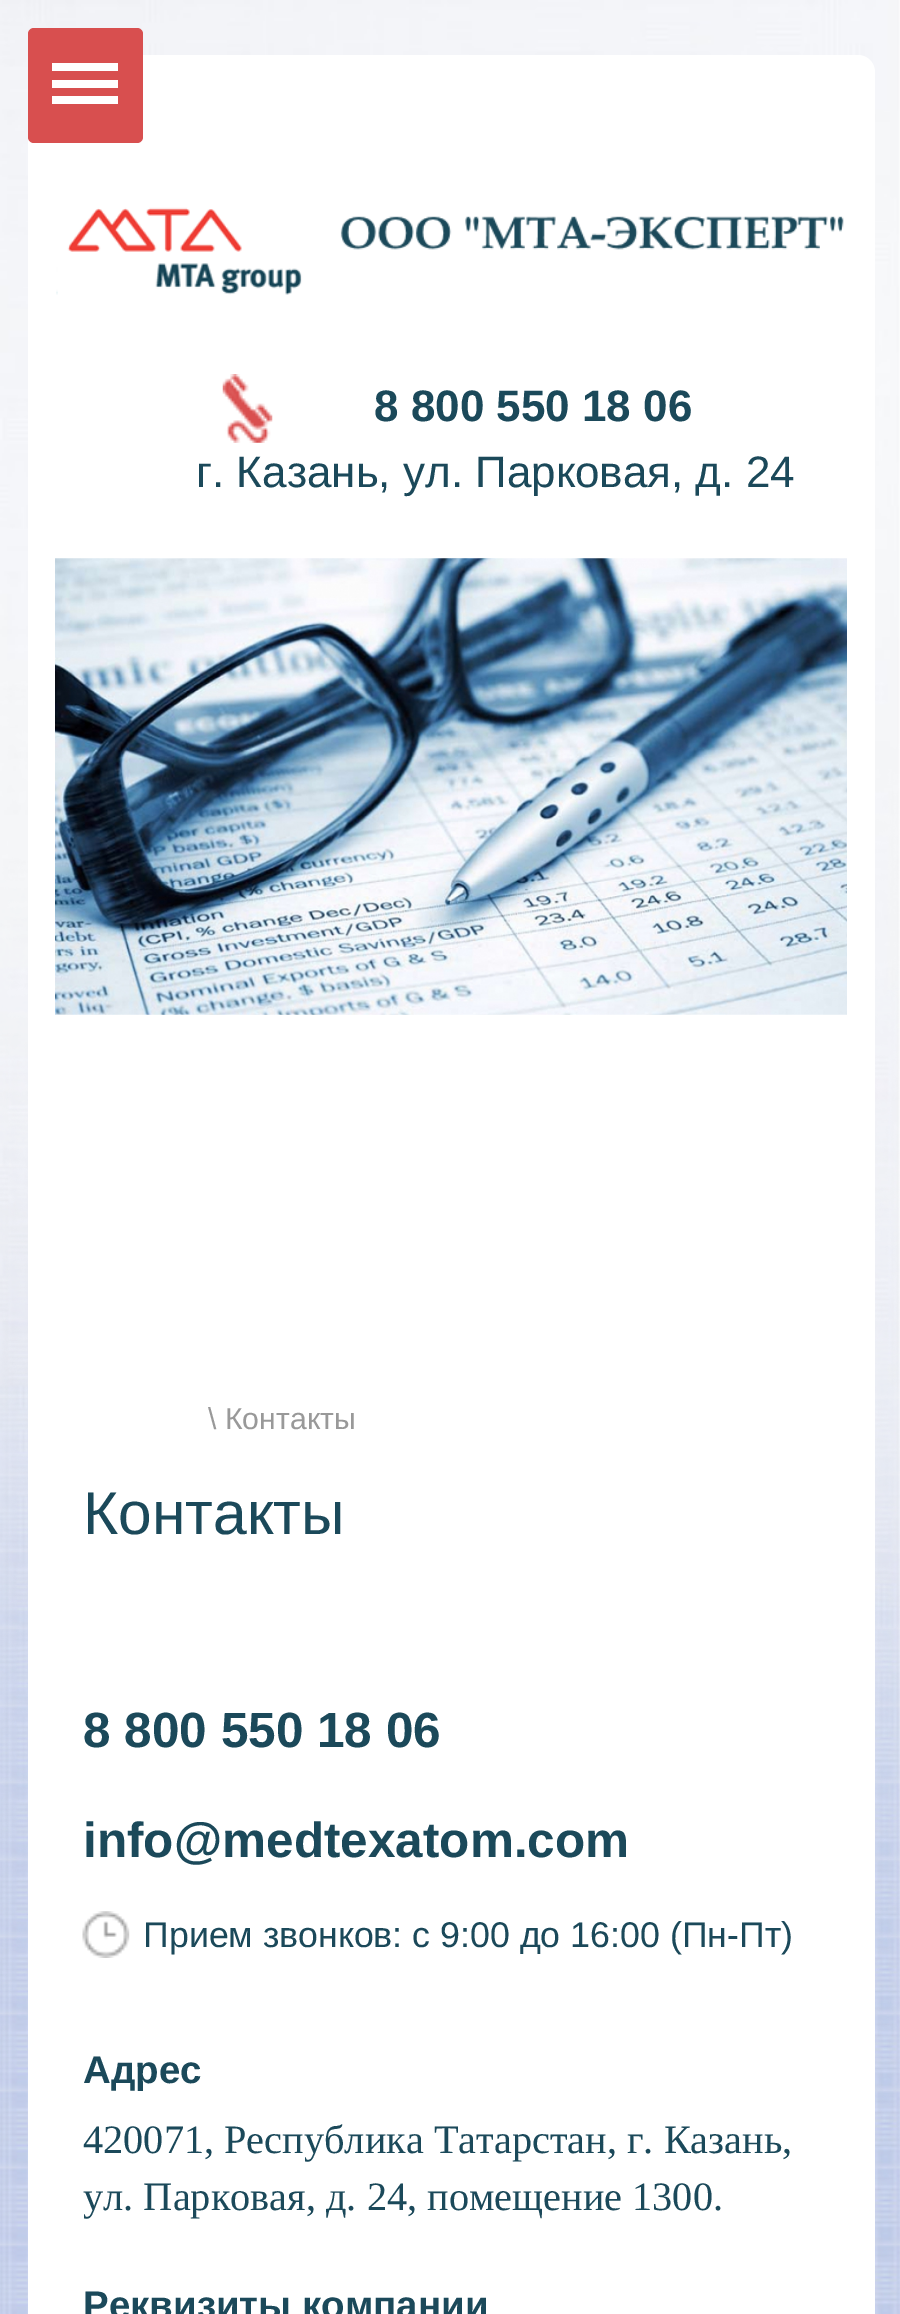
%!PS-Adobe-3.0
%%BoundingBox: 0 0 900 2314
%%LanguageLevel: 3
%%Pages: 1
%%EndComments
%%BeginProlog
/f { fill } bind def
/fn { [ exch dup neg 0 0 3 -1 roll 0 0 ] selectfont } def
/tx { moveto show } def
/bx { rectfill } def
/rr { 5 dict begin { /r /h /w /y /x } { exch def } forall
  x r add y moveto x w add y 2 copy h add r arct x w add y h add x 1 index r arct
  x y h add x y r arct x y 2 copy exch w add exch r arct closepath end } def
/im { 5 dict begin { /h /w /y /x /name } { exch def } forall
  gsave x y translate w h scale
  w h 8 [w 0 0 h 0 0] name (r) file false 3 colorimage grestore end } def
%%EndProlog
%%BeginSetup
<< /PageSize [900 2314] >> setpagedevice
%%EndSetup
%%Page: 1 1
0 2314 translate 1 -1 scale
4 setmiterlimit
1 setgray
0 0 900 2314 bx
(image0.raw) 0 0 900 2314 im
28 55 847 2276 17 rr f
0.847 0.31 0.31 setrgbcolor
28 28 115 115 6 rr f
1 setgray
52 63 66 8 bx
52 80 66 8 bx
52 96 66 8 bx
(image1.raw) 56 207 788 88 im
(image2.raw) 222 374 51 69 im
/LiberationSans-Bold 44 fn
0.106 0.286 0.353 setrgbcolor
(8 800 550 18 06) 374 421 tx
/LiberationSans-Regular 44 fn
(г. Казань, ул. Парковая, д. 24) 196 487 tx
(image3.raw) 55 558 792 457 im
/LiberationSans-Regular 30.25 fn
0.6 setgray
(\\ Контакты) 208 1429 tx
/LiberationSans-Regular 60.5 fn
0.106 0.286 0.353 setrgbcolor
(Контакты) 83 1534 tx
/LiberationSans-Bold 49.5 fn
(8 800 550 18 06) 83 1747 tx
(info@medtexatom.com) 83 1857 tx
(image4.raw) 82 1911 48 47 im
/LiberationSans-Regular 35.75 fn
(Прием звонков: с 9:00 до 16:00 \(Пн-Пт\)) 143 1947 tx
/LiberationSans-Bold 38.5 fn
(Адрес) 83 2083 tx
/LiberationSerif-Regular 40.3 fn
(420071, Республика Татарстан, г. Казань,) 83 2153 tx
(ул. Парковая, д. 24, помещение 1300.) 83 2210 tx
/LiberationSans-Bold 38.5 fn
(Реквизиты компании) 83 2318 tx
showpage
%%EOF
